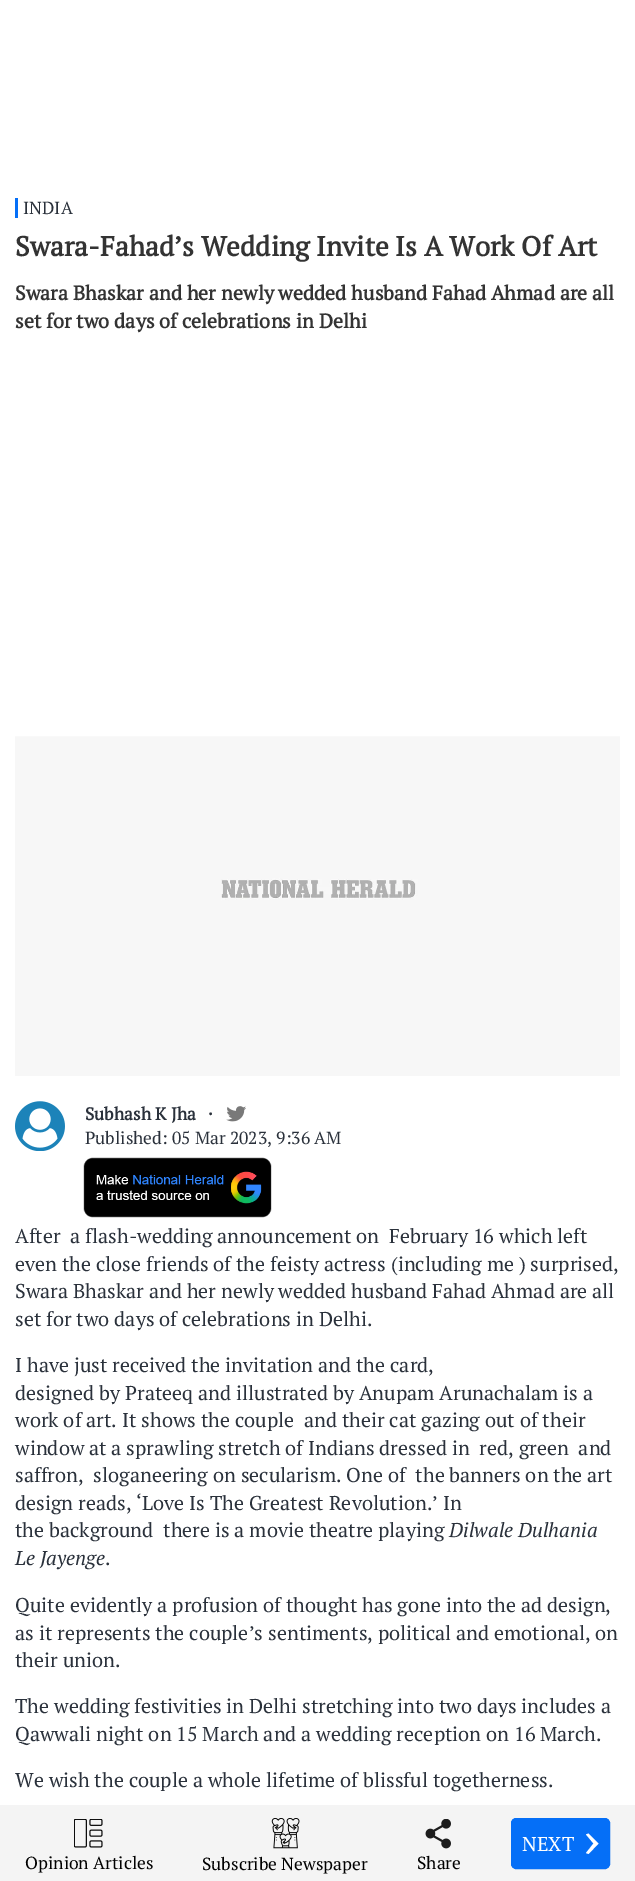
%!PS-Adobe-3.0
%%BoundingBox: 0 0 635 1881
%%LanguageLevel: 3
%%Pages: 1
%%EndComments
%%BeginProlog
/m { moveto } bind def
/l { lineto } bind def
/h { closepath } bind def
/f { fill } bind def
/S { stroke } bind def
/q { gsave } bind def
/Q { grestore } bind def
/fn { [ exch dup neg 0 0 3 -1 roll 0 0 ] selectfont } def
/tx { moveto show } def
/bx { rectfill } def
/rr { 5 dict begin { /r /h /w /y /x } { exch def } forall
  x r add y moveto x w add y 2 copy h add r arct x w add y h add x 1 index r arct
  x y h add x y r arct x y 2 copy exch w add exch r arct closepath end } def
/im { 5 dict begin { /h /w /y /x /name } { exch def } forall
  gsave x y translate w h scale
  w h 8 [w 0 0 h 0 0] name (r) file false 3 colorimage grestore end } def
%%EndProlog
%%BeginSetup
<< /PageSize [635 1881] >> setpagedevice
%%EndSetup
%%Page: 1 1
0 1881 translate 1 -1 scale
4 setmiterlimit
1 setgray
0 0 635 1881 bx
0.02 0.435 0.969 setrgbcolor
15 198 3 20 bx
/PTSerif-Regular 17.5 fn
0.165 0.192 0.231 setrgbcolor
(INDIA) 23 214 tx
/PTSerif-Bold 27.5 fn
0.2 setgray
(Swara-Fahad’s Wedding Invite Is A Work Of Art) 15 256 tx
/PTSerif-Bold 20 fn
(Swara Bhaskar and her newly wedded husband Fahad Ahmad are all) 15 300 tx
(set for two days of celebrations in Delhi) 15 328 tx
(image0.raw) 15 736 605 340 im
(image1.raw) 15 1101 50 50 im
/PTSerif-Bold 17.5 fn
0.165 0.192 0.231 setrgbcolor
(Subhash K Jha) 85 1120 tx
(.) 208 1115 tx
(image2.raw) 226 1106 20 16 im
/PTSerif-Regular 17.5 fn
(Published: 05 Mar 2023, 9:36 AM) 85 1144 tx
(image3.raw) 83 1157 189 61 im
/PTSerif-Regular 20 fn
(After  a flash-wedding announcement on  February 16 which left) 15 1243 tx
(even the close friends of the feisty actress \(including me \) surprised,) 15 1271 tx
(Swara Bhaskar and her newly wedded husband Fahad Ahmad are all) 15 1298 tx
(set for two days of celebrations in Delhi.) 15 1326 tx
(I have just received the invitation and the card,) 15 1372 tx
(designed by Prateeq and illustrated by Anupam Arunachalam is a) 15 1400 tx
(work of art. It shows the couple  and their cat gazing out of their) 15 1427 tx
(window at a sprawling stretch of Indians dressed in  red, green  and) 15 1455 tx
(saffron,  sloganeering on secularism. One of  the banners on the art) 15 1482 tx
(design reads, ‘Love Is The Greatest Revolution.’ In) 15 1510 tx
(the background  there is a movie theatre playing) 15 1537 tx
/PTSerif-Italic 20 fn
(Dilwale Dulhania) 449 1537 tx
(Le Jayenge) 15 1565 tx
/PTSerif-Regular 20 fn
(.) 105 1565 tx
(Quite evidently a profusion of thought has gone into the ad design,) 15 1612 tx
(as it represents the couple’s sentiments, political and emotional, on) 15 1640 tx
(their union.) 15 1667 tx
(The wedding festivities in Delhi stretching into two days includes a) 15 1713 tx
(Qawwali night on 15 March and a wedding reception on 16 March.) 15 1741 tx
(We wish the couple a whole lifetime of blissful togetherness.) 15 1787 tx
0.957 setgray
0 1805 635 76 bx
0.02 0.435 0.969 setrgbcolor
511.5 1818.5 98 50 4.5 rr q f Q
S
1 setgray
(NEXT) 522 1851 tx
586 1853 m 593.5 1843.5 l 586 1834.5 l 588.5 1833.5 l 598.5 1843.5 l 588.5 1854 l h f
(image4.raw) 74 1819 29 29 im
/PTSerif-Regular 17.5 fn
0 setgray
(Opinion Articles) 25 1869 tx
(image5.raw) 271 1818 29 31 im
(Subscribe Newspaper) 202 1870 tx
(image6.raw) 425 1819 26 30 im
(Share) 417 1869 tx
showpage
%%EOF
